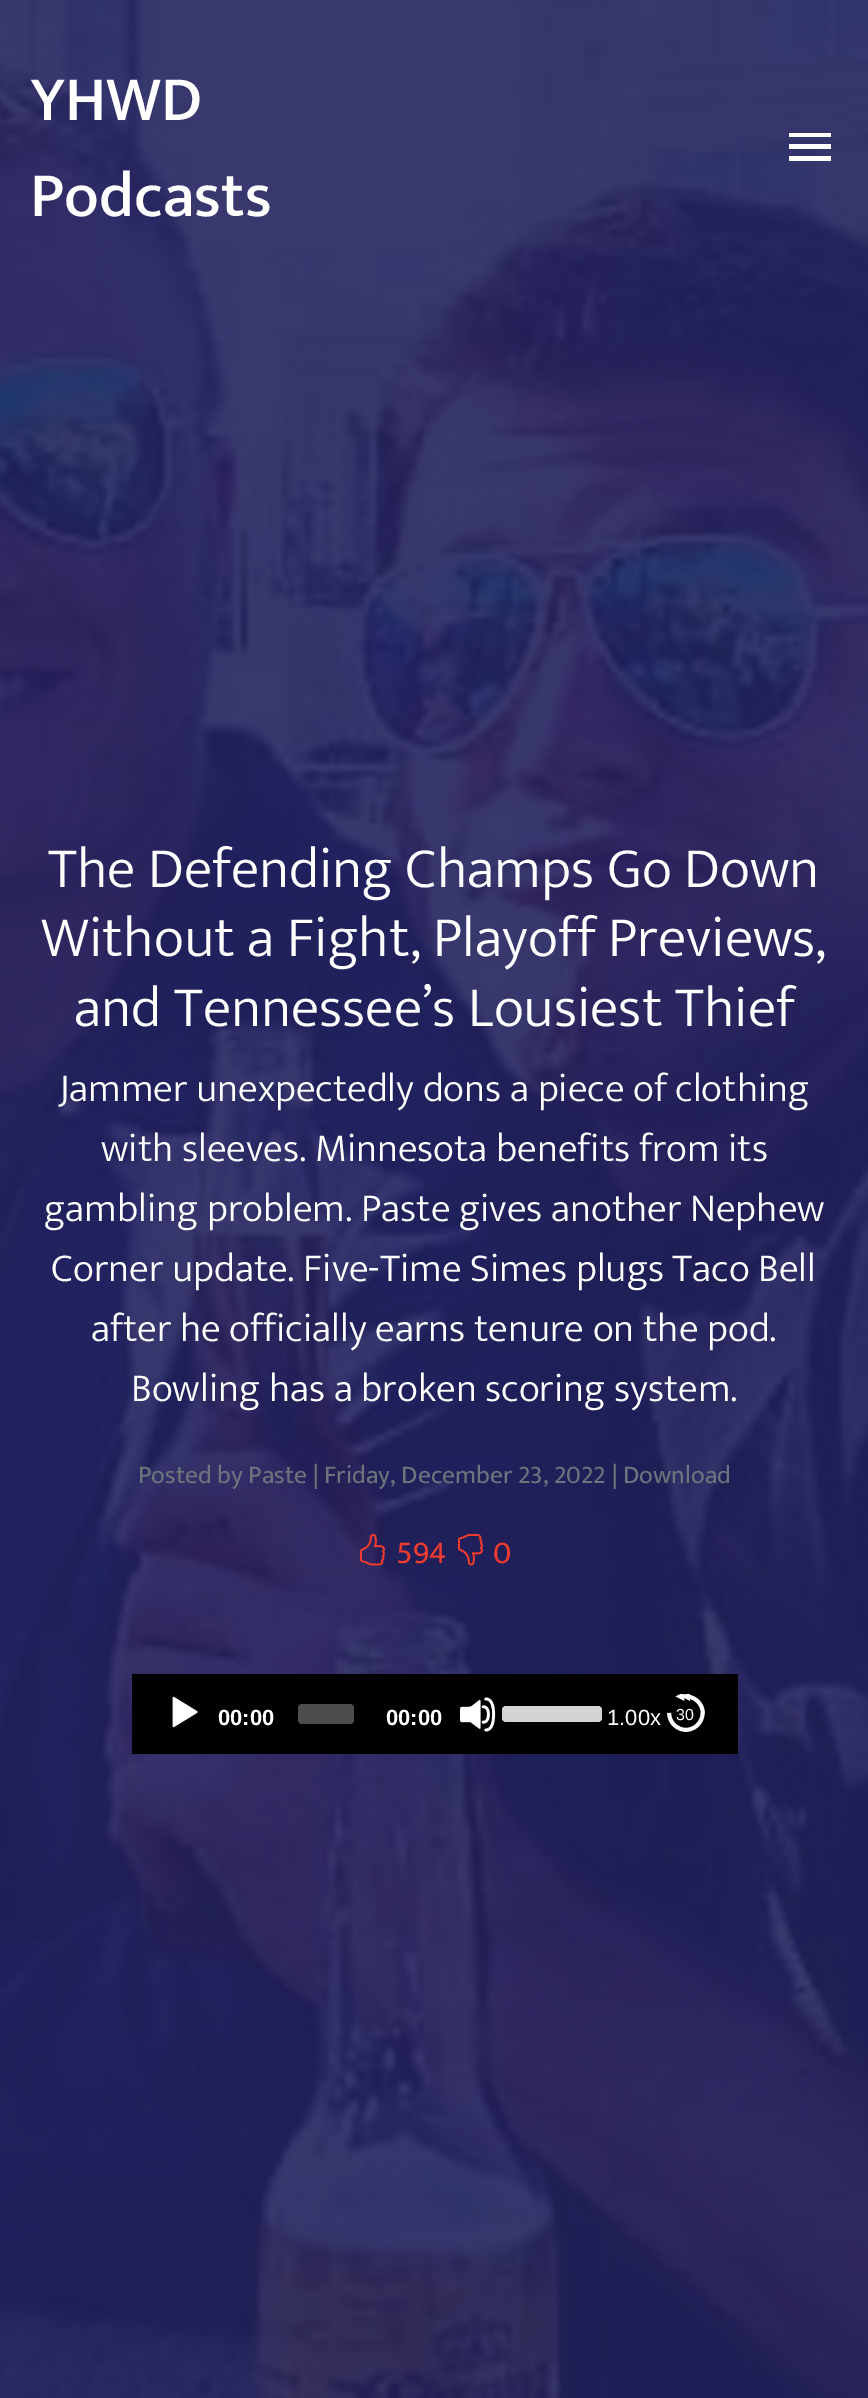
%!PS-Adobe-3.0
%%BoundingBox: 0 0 868 2398
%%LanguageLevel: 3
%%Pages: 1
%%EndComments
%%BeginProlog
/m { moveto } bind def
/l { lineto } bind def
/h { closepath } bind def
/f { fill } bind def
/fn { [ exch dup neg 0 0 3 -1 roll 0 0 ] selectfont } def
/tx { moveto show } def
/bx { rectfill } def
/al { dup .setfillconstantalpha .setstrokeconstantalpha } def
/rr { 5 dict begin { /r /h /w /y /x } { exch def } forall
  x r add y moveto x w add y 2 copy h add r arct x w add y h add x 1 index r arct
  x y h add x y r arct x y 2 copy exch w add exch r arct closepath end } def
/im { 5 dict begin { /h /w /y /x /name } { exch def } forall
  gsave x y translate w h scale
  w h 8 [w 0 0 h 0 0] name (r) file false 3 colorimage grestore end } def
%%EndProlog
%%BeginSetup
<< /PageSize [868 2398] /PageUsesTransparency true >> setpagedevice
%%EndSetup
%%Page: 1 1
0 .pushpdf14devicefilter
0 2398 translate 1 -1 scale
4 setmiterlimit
1 setgray
0 0 868 2398 bx
(image0.raw) 0 0 868 2398 im
/Mukta-Medium 64 fn
(YHWD) 30 120 tx
(Podcasts) 30 216 tx
789 133 m 831 133 l 831 137 l 789 137 l h 789 149 m 789 144 l 831 144 l 831 149 l h 789 161 m 789 156 l 831 156 l 831 161 l h f
/Mukta-Light 57.6 fn
(The Defending Champs Go Down) 48 887 tx
(Without a Fight, Playoff Previews,) 41 956 tx
(and Tennessee’s Lousiest Thief) 74 1026 tx
/Mukta-Light 40 fn
(Jammer unexpectedly dons a piece of clothing) 59 1101 tx
(with sleeves. Minnesota benefits from its) 101 1161 tx
(gambling problem. Paste gives another Nephew) 44 1221 tx
(Corner update. Five-Time Simes plugs Taco Bell) 51 1281 tx
(after he officially earns tenure on the pod.) 91 1341 tx
(Bowling has a broken scoring system.) 131 1401 tx
/Mukta-Regular 25.6 fn
0.424 0.459 0.49 setrgbcolor
(Posted by Paste | Friday, December 23, 2022 | Download) 138 1483 tx
(image1.raw) 359 1534 26 32 im
/Mukta-Regular 32 fn
0.949 0.227 0.18 setrgbcolor
(594) 396 1563 tx
(image2.raw) 457 1534 26 32 im
(0) 493 1563 tx
0 setgray
132 1674 606 80 bx
(image3.raw) 172 1696 26 32 im
/LiberationSans-Bold 22 fn
1 setgray
(00:00) 218 1725 tx
0.302 setgray
298 1704 56 20 4 rr f
1 setgray
(00:00) 386 1725 tx
(image4.raw) 460 1697 36 35 im
0.157 setgray
502 1706 100 16 4 rr f
0.8 al
1 setgray
502 1706 100 16 4 rr f
/LiberationSans-Regular 22 fn
1 al
(1.00x) 607 1725 tx
(image5.raw) 667 1694 38 38 im
/LiberationSans-Regular 16 fn
(30) 676 1720 tx
.poppdf14devicefilter showpage
%%EOF
